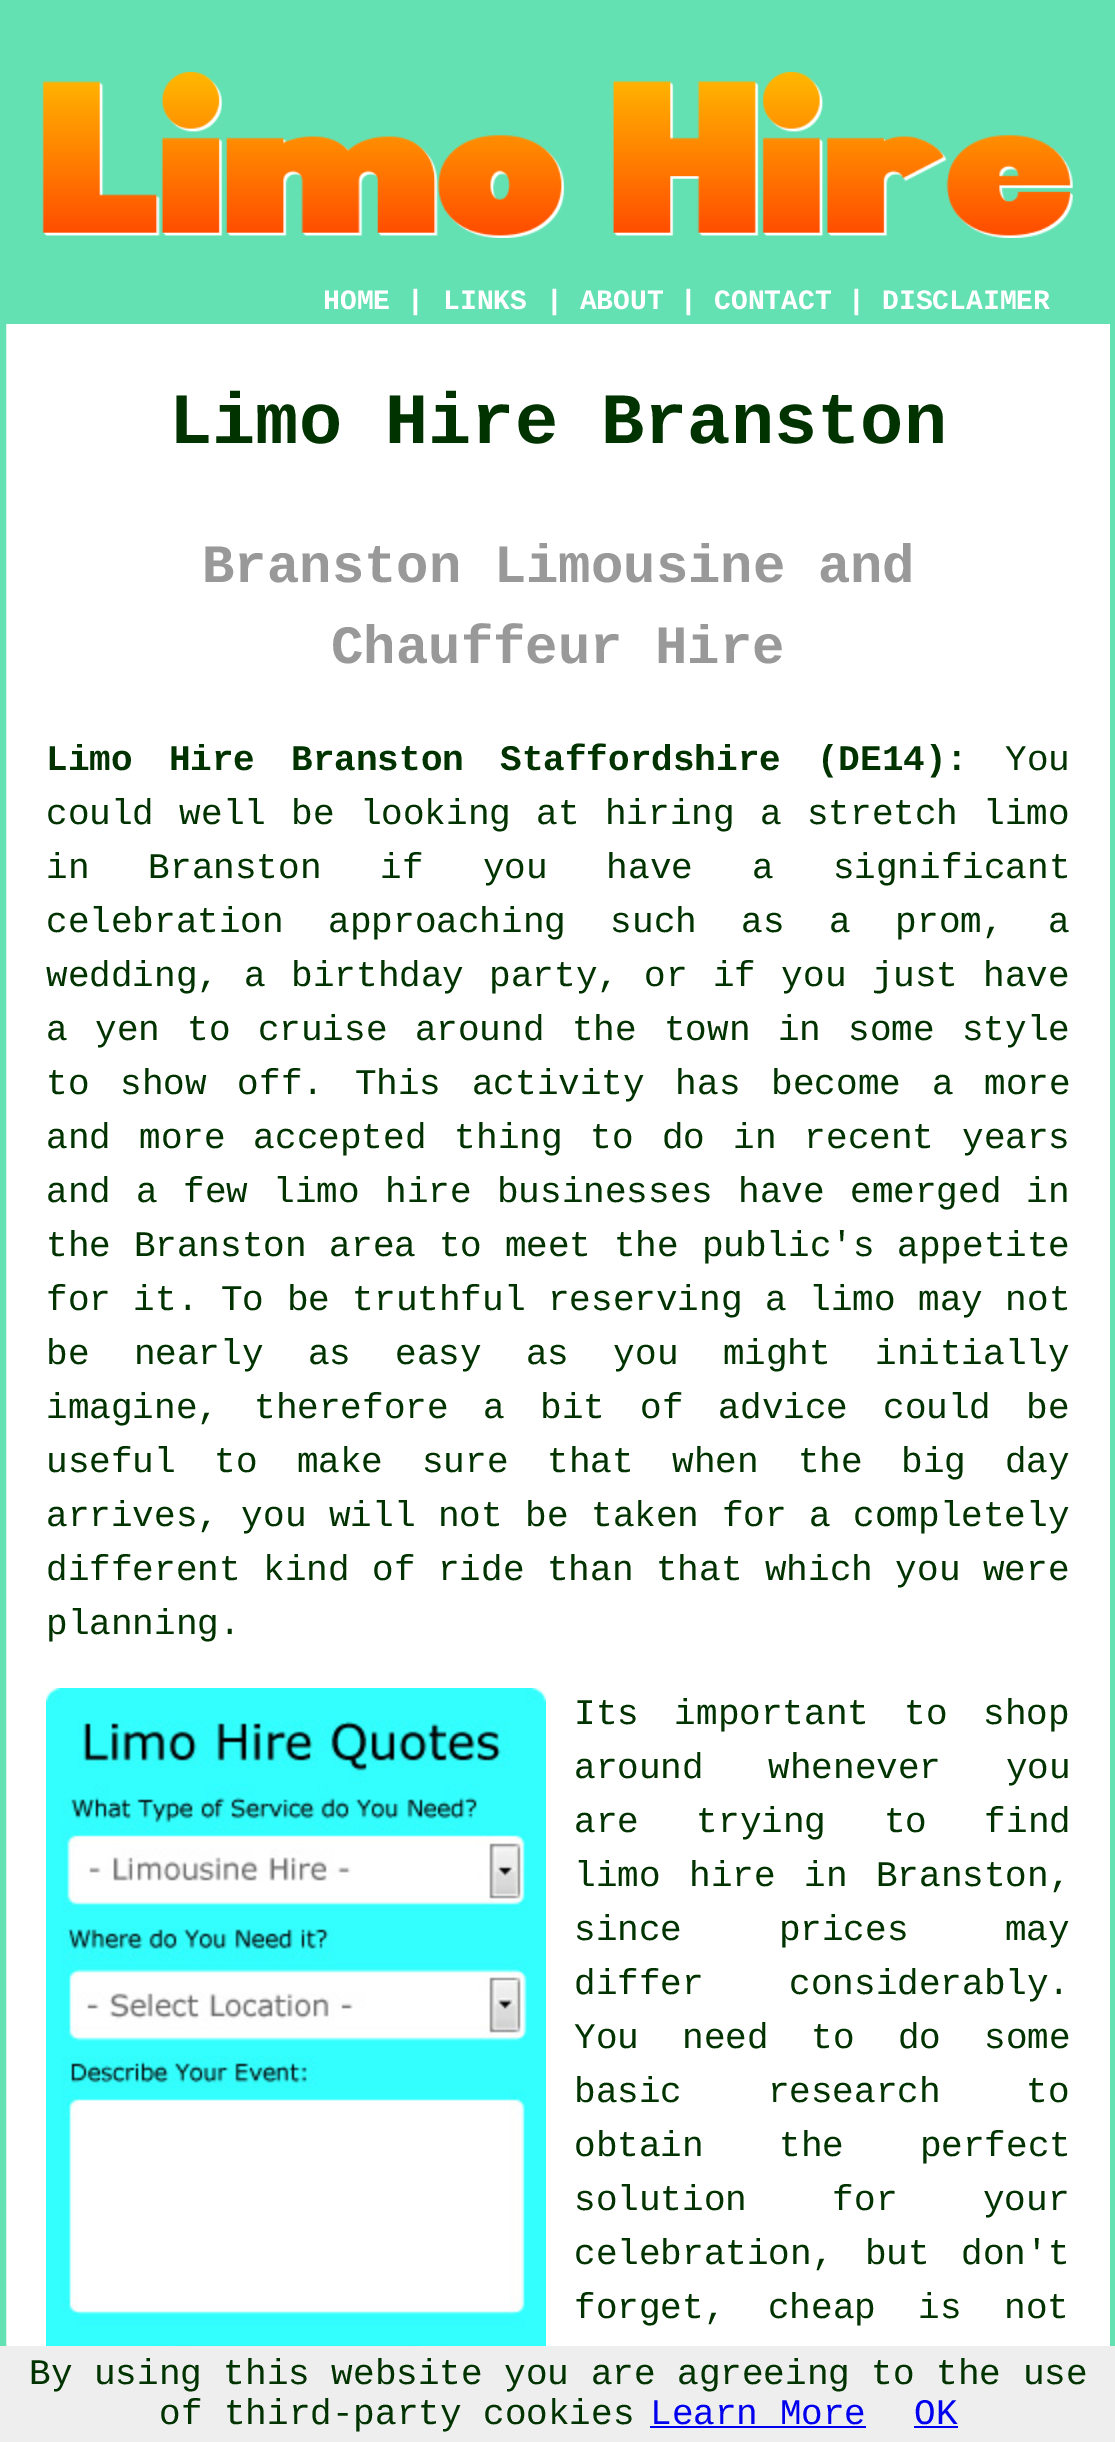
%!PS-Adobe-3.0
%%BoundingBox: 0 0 1115 2442
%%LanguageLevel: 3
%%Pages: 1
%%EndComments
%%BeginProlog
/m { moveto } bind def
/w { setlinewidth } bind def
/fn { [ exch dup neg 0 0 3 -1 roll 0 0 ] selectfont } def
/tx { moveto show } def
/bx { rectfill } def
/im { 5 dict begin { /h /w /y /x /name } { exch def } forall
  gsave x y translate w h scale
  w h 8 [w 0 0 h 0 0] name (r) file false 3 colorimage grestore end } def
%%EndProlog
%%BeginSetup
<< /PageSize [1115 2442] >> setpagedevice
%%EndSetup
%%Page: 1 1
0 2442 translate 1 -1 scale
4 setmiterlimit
1 setgray
0 0 1115 2442 bx
0.388 0.882 0.702 setrgbcolor
6 w
3 3 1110 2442 rectstroke
6 6 1104 318 bx
(image0.raw) 42 72 1031 166 im
/LiberationMono-Bold 28 fn
1 setgray
(HOME |) 323 309 tx
(LINKS) 443 309 tx
(| ABOUT | CONTACT | DISCLAIMER) 546 309 tx
/LiberationMono-Bold 72 fn
0 0.2 0 setrgbcolor
(Limo Hire Branston) 169 443 tx
/LiberationMono-Bold 54 fn
0.6 setgray
(Branston Limousine and) 202 582 tx
(Chauffeur Hire) 331 663 tx
/LiberationMono-Bold 36 fn
0 0.2 0 setrgbcolor
46 770 m 14.5 0 32 (Limo Hire Branston Staffordshire \(DE14\):) widthshow
/LiberationMono-Regular 36 fn
(You) 1005 770 tx
46 824 m 3.75 0 32 (could well be looking at hiring a stretch limo) widthshow
46 878 m 37.5 0 32 (in Branston if you have a significant) widthshow
46 932 m 23 0 32 (celebration approaching such as a prom, a) widthshow
46 986 m 3.75 0 32 (wedding, a birthday party, or if you just have) widthshow
46 1040 m 5.75 0 32 (a yen to cruise around the town in some style) widthshow
46 1094 m 9.25 0 32 (to show off. This activity has become a more) widthshow
46 1148 m 6.5 0 32 (and more accepted thing to do in recent years) widthshow
46 1202 m 3.75 0 32 (and a few limo hire businesses have emerged in) widthshow
46 1256 m 1.25 0 32 (the Branston area to meet the public's appetite) widthshow
46 1310 m 1 0 32 (for it. To be truthful reserving a limo may not) widthshow
46 1364 m 22.75 0 32 (be nearly as easy as you might initially) widthshow
46 1418 m 13.5 0 32 (imagine, therefore a bit of advice could be) widthshow
46 1472 m 17.25 0 32 (useful to make sure that when the big day) widthshow
46 1526 m 1 0 32 (arrives, you will not be taken for a completely) widthshow
46 1580 m 1 0 32 (different kind of ride than that which you were) widthshow
(planning.) 46 1634 tx
(image1.raw) 46 1688 500 658 im
574 1724 m 14 0 32 (Its important to shop) widthshow
574 1778 m 43 0 32 (around whenever you) widthshow
574 1832 m 36 0 32 (are trying to find) widthshow
574 1886 m 7 0 32 (limo hire) widthshow
804 1886 m 7 0 32 (in Branston,) widthshow
574 1940 m 75 0 32 (since prices may) widthshow
574 1994 m 64 0 32 (differ considerably.) widthshow
574 2048 m 21.5 0 32 (You need to do some) widthshow
574 2102 m 64 0 32 (basic research to) widthshow
574 2156 m 54 0 32 (obtain the perfect) widthshow
574 2210 m 64 0 32 (solution for your) widthshow
574 2264 m 10 0 32 (celebration, but don't) widthshow
574 2318 m 21 0 32 (forget, cheap is not) widthshow
0.933 setgray
0 2346 1115 96 bx
0 0.2 0 setrgbcolor
(By using this website you are agreeing to the use) 29 2384 tx
(of third-party cookies) 159 2424 tx
0 0 0.933 setrgbcolor
(Learn More) 650 2424 tx
650 2426 216 2 bx
(OK) 914 2424 tx
914 2426 44 2 bx
showpage
%%EOF
